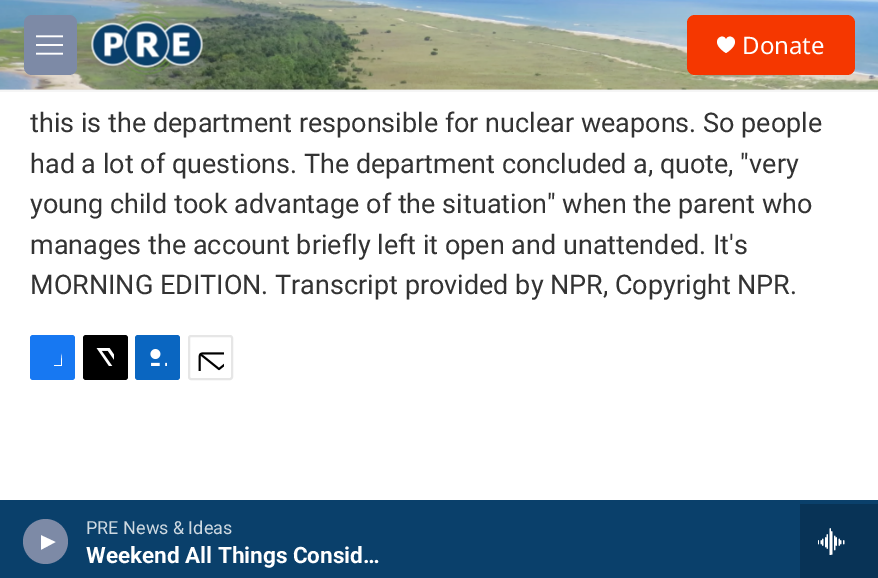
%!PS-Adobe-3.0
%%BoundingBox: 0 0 878 578
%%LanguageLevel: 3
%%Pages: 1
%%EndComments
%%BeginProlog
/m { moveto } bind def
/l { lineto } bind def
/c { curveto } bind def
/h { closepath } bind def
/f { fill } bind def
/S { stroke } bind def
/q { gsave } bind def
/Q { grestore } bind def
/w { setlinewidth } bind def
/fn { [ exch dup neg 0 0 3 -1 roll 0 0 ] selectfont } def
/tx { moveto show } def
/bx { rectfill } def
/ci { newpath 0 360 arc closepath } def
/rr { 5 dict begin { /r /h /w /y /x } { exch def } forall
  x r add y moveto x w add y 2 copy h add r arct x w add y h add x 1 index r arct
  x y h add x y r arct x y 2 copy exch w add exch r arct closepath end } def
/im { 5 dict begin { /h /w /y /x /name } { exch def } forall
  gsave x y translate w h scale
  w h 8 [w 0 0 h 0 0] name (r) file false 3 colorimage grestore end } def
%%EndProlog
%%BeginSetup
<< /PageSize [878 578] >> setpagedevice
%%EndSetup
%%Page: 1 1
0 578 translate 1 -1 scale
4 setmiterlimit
1 setgray
0 0 878 578 bx
0.902 setgray
0 89 878 1 bx
0.961 setgray
0 90 878 2 bx
(image0.raw) 0 0 878 90 im
0.49 0.541 0.651 setrgbcolor
24 15 53 60 8 rr f
(image1.raw) 36 35 27 20 im
(image2.raw) 91 14 112 61 im
0.961 0.216 0 setrgbcolor
687 15 168 60 8 rr f
1 setgray
726 39.5 m 723 31.5 707.5 41.5 726 53 c 744.5 41.5 729 31.5 726 39.5 c h f
/NotoSans-Regular 24 fn
(Donate) 742 54 tx
0.039 0.251 0.42 setrgbcolor
0 504 800 74 bx
0.49 0.541 0.651 setrgbcolor
45.5 541.5 22.5 ci f
q
41 534 15 17 rectclip
1 setgray
40.5 535 m 55.5 542 l 40.5 550 l h f
Q
/Roboto-Regular 18 fn
0.808 0.851 0.882 setrgbcolor
(PRE News & Ideas) 86 534 tx
/Roboto-Bold 22.5 fn
1 setgray
(Weekend All Things Consid…) 86 563 tx
0.031 0.2 0.337 setrgbcolor
800 504 78 74 bx
(image3.raw) 818 528 27 27 im
/Roboto-Regular 27 fn
0.2 setgray
(this is the department responsible for nuclear weapons. So people) 30 132 tx
(had a lot of questions. The department concluded a, quote, "very) 30 173 tx
(young child took advantage of the situation" when the parent who) 30 213 tx
(manages the account briefly left it open and unattended. It's) 30 254 tx
(MORNING EDITION. Transcript provided by NPR, Copyright NPR.) 30 294 tx
0.09 0.471 0.949 setrgbcolor
30 335 45 45 3 rr f
q
44 348 18 18 rectclip
1 setgray
68 380 m 61 380 l 61 372 l 54 372 l 54 365 l 61 365 l 61 352.5 62 347 75 349 c 75 356 l 66.5 356 68 357.5 68 365 c 75 365 l 74 372 l 68 372 l h f
Q
0 setgray
83 335 45 45 3 rr f
(image4.raw) 96 348 18 18 im
0.039 0.4 0.757 setrgbcolor
135 335 45 45 3 rr f
(image5.raw) 150 349 17 17 im
0.902 setgray
2 w
189 336 43 43 2 rr S
(image6.raw) 198 352 26 19 im
0.039 0.251 0.42 setrgbcolor
0 500 878 4 bx
showpage
%%EOF
